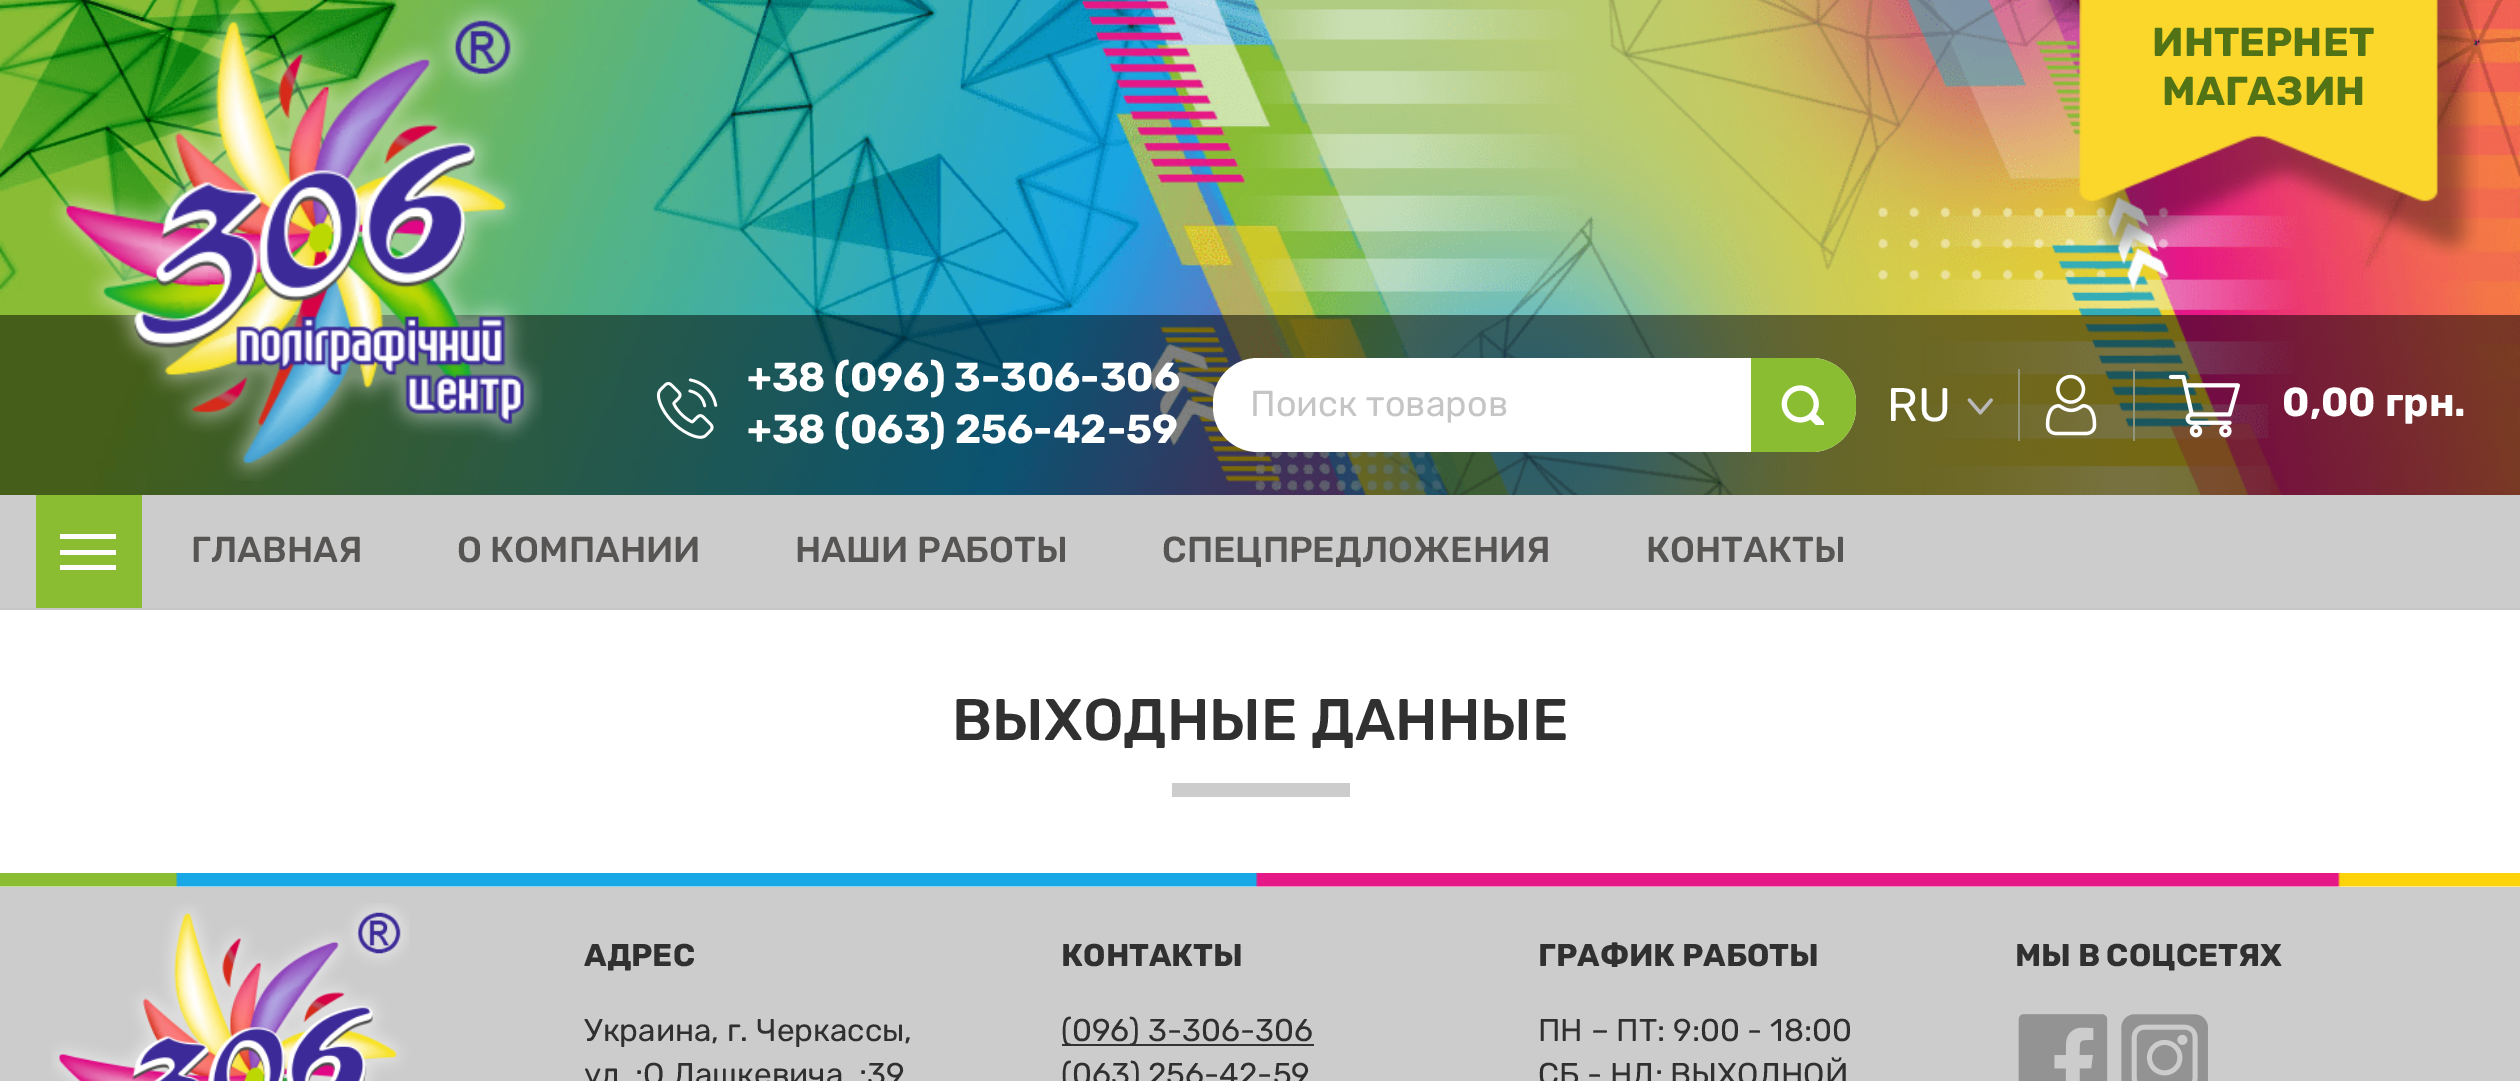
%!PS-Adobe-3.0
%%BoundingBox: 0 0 2520 1081
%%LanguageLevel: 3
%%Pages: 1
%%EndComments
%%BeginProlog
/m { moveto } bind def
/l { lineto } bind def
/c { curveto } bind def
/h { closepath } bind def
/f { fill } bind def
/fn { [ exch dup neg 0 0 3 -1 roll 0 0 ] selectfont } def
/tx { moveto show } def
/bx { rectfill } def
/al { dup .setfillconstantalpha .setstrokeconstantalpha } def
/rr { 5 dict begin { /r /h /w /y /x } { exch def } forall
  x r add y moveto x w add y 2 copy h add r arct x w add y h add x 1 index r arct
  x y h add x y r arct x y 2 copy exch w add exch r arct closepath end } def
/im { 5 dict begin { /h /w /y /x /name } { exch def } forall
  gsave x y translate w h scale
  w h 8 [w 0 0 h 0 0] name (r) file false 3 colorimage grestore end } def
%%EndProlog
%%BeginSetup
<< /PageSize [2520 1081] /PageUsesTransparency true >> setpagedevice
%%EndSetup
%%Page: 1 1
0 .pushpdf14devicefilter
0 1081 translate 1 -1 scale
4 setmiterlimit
1 setgray
0 0 2520 1081 bx
0.78 setgray
0 608 2520 2 bx
(image0.raw) 0 0 2520 495 im
(image1.raw) 2036 0 442 256 im
/Rubik-Bold 40.5 fn
0.318 0.451 0.086 setrgbcolor
(ИНТЕРНЕТ) 2152 56 tx
(МАГАЗИН) 2162 105 tx
0.5 al
0 setgray
0 315 2520 180 bx
1 al
(image2.raw) 49 3 494 478 im
(image3.raw) 656 378 62 61 im
1 setgray
(+38 \(096\) 3-306-306) 747 391 tx
(+38 \(063\) 256-42-59) 747 443 tx
1213 358 643 94 45 rr f
/Rubik-Regular 36 fn
0.773 setgray
(Поиск товаров) 1250 416 tx
0.541 0.741 0.192 setrgbcolor
1751 358 m 1811 358 l 1836 358 1856 378 1856 403 c 1856 407 l 1856 432 1836 452 1811 452 c 1751 452 l h f
(image4.raw) 1781 385 44 40 im
/Rubik-Regular 47 fn
1 setgray
(RU) 1887 421 tx
(image5.raw) 1967 398 26 17 im
0.576 0.588 0.482 setrgbcolor
2018 369 2 72 bx
(image6.raw) 2045 374 52 62 im
2133 369 2 72 bx
(image7.raw) 2168 374 72 64 im
/Rubik-Bold 40.5 fn
1 setgray
(0,00 грн.) 2282 416 tx
0.8 setgray
0 495 2520 113 bx
0.541 0.741 0.192 setrgbcolor
36 495 106 113 bx
1 setgray
60 534 56 5 bx
60 550 56 5 bx
60 565 56 5 bx
/Rubik-Medium 36 fn
0.341 0.329 0.329 setrgbcolor
(ГЛАВНАЯ) 191 562 tx
(О КОМПАНИИ) 457 562 tx
(НАШИ РАБОТЫ) 795 562 tx
(СПЕЦПРЕДЛОЖЕНИЯ) 1162 562 tx
(КОНТАКТЫ) 1646 562 tx
/Rubik-Medium 58.5 fn
0.188 setgray
(ВЫХОДНЫЕ ДАННЫЕ) 952 740 tx
0.8 setgray
1172 783 178 14 bx
(image8.raw) 0 873 2520 14 im
0 887 2520 194 bx
(image9.raw) 51 903 359 178 im
/Rubik-Bold 31.5 fn
0.188 setgray
(АДРЕС) 584 966 tx
/Rubik-Regular 31.5 fn
(Украина, г. Черкассы,) 584 1041 tx
(ул. :О.Дашкевича, :39) 584 1085 tx
/Rubik-Bold 31.5 fn
(КОНТАКТЫ) 1061 966 tx
0.204 setgray
1062 1044 252 2 bx
/Rubik-Regular 31.5 fn
0.188 setgray
(\(096\) 3-306-306) 1061 1041 tx
(\(063\) 256-42-59) 1061 1085 tx
/Rubik-Bold 31.5 fn
(ГРАФИК РАБОТЫ) 1538 966 tx
/Rubik-Regular 31.5 fn
(ПН – ПТ: 9:00 - 18:00) 1538 1041 tx
(СБ - НД: ВЫХОДНОЙ) 1538 1085 tx
/Rubik-Bold 31.5 fn
(МЫ В СОЦСЕТЯХ) 2015 966 tx
(image10.raw) 2018 1014 90 67 im
(image11.raw) 2121 1014 87 67 im
.poppdf14devicefilter showpage
%%EOF
